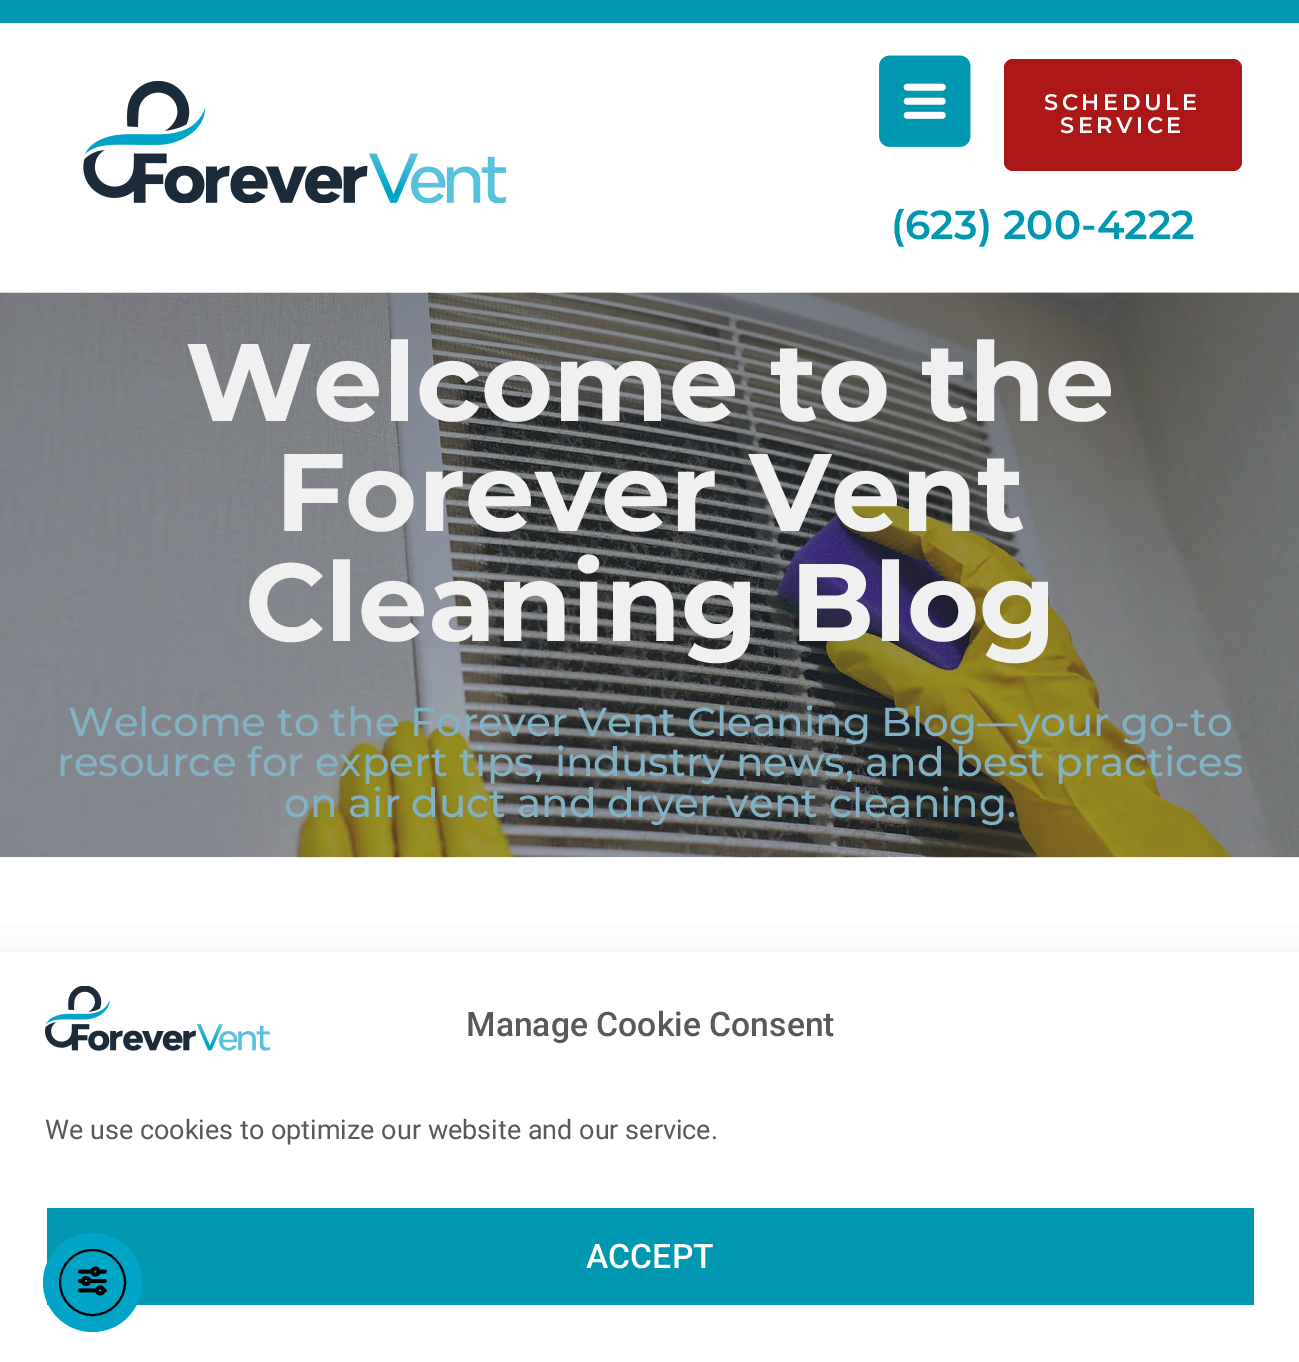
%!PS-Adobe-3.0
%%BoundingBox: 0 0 1299 1362
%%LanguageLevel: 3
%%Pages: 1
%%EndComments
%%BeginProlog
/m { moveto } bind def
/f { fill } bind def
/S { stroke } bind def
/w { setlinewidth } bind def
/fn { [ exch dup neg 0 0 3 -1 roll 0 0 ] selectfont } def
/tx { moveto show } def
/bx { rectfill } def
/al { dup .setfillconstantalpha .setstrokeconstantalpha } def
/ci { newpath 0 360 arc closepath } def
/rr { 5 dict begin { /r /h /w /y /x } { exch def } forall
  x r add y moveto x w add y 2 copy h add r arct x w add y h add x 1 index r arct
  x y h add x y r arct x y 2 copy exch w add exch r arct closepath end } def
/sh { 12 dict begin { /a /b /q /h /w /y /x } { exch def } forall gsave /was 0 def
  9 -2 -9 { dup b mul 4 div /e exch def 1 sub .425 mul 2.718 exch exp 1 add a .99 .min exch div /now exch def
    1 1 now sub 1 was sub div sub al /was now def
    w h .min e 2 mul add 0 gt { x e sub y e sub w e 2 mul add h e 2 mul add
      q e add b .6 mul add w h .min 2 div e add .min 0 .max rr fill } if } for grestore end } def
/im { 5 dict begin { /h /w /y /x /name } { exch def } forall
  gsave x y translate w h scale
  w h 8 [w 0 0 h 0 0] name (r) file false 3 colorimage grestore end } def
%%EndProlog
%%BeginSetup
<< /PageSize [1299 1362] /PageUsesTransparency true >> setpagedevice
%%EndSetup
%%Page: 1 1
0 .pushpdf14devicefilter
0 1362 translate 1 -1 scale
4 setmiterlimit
1 setgray
0 0 1299 1362 bx
0 0.596 0.69 setrgbcolor
0 0 1299 23 bx
(image0.raw) 83 81 423 122 im
(image1.raw) 879 55 92 92 im
0.675 0.094 0.094 setrgbcolor
1004 59 238 112 9 rr f
/Montserrat-SemiBold 22.5 fn
1 setgray
1044 110 m 3.5 0 (SCHEDULE) ashow
1060 133 m 3.5 0 (SERVICE) ashow
/Montserrat-SemiBold 40.5 fn
0 0.596 0.69 setrgbcolor
(\(623\) 200-4222) 891 239 tx
(image2.raw) 0 292 1299 566 im
/Montserrat-Bold 110.25 fn
0.941 setgray
(Welcome to the) 185 421 tx
(Forever Vent) 275 531 tx
(Cleaning Blog) 245 641 tx
/Montserrat-Medium 40.5 fn
0.514 0.694 0.769 setrgbcolor
(Welcome to the Forever Vent Cleaning Blog—your go-to) 68 736 tx
(resource for expert tips, industry news, and best practices) 57 776 tx
(on air duct and dryer vent cleaning.) 284 817 tx
0 setgray
0 974 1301 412 0 22.5 0.19 sh
1 setgray
0 952 1299 410 bx
(image3.raw) 45 986 225 65 im
/Roboto-Medium 33.75 fn
0.349 setgray
(Manage Cookie Consent) 466 1036 tx
/Roboto-Regular 27 fn
(We use cookies to optimize our website and our service.) 45 1139 tx
0 0.596 0.69 setrgbcolor
47 1208 1207 97 bx
/Roboto-Medium 33.75 fn
1 setgray
(ACCEPT) 586 1268 tx
0 0.643 0.78 setrgbcolor
92.5 1282.5 49.5 ci f
0 setgray
2 w
92.5 1282.5 32.5 ci S
(image4.raw) 77 1266 30 30 im
.poppdf14devicefilter showpage
%%EOF
